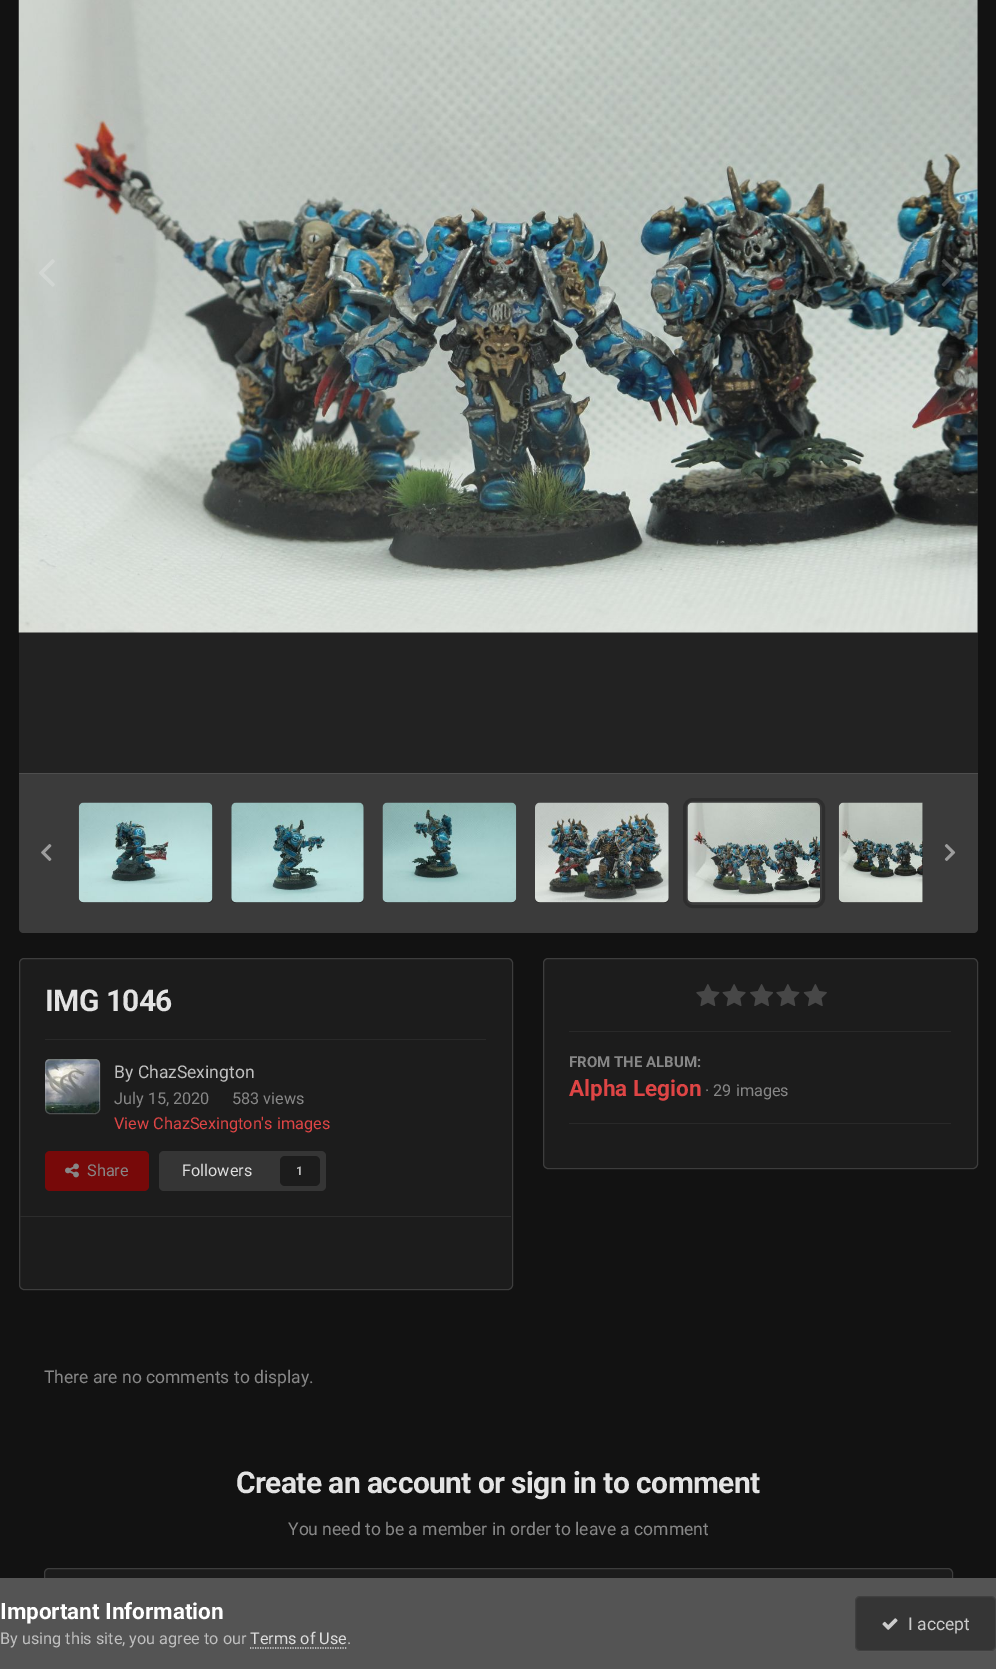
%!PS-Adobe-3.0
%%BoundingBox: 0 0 996 1669
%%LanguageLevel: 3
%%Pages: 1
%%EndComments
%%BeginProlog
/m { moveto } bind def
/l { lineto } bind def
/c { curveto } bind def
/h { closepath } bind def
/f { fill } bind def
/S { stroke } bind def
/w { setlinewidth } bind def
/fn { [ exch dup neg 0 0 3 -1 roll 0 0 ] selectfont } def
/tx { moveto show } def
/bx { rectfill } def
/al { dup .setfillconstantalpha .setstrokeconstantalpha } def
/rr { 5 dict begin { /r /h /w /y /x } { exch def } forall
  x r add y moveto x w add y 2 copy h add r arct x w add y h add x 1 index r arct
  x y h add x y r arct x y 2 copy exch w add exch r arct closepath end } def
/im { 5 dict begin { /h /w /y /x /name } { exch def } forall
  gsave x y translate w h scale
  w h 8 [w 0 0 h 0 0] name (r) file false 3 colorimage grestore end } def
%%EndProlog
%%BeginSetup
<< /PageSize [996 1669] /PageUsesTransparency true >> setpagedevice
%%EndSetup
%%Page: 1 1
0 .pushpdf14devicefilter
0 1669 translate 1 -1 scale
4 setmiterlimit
0.071 setgray
0 0 996 1669 bx
0.133 setgray
19 0 959 773 bx
(image0.raw) 18 0 960 633 im
(image1.raw) 39 259 16 28 im
(image2.raw) 941 259 17 28 im
0.329 setgray
19 773 m 978 773 l 978 928 l 978 931 976 933 973 933 c 24 933 l 21 933 19 931 19 928 c h f
0.3 al
0 setgray
19 773 m 978 773 l 978 928 l 978 931 976 933 973 933 c 24 933 l 21 933 19 931 19 928 c h f
1 al
0.306 setgray
19 773 959 1 bx
0.078 setgray
79 803 134 100 5 rr f
0.3 al
0.329 setgray
79 803 134 100 5 rr f
1 al
(image3.raw) 78 802 135 101 im
0.078 setgray
231 803 133 100 5 rr f
0.3 al
0.329 setgray
231 803 133 100 5 rr f
1 al
(image4.raw) 231 802 133 101 im
0.078 setgray
383 803 133 100 5 rr f
0.3 al
0.329 setgray
383 803 133 100 5 rr f
1 al
(image5.raw) 382 802 135 101 im
0.078 setgray
535 803 134 100 5 rr f
0.3 al
0.329 setgray
535 803 134 100 5 rr f
1 al
(image6.raw) 535 802 134 101 im
0.078 setgray
688 803 132 100 5 rr f
0.3 al
0.329 setgray
688 803 132 100 5 rr f
1 al
0.18 setgray
3 w
684.5 799.5 139 107 8.5 rr S
(image7.raw) 687 802 133 101 im
0.078 setgray
844 803 m 923 803 l 923 903 l 844 903 l 841 903 839 901 839 898 c 839 808 l 839 805 841 803 844 803 c h f
0.3 al
0.329 setgray
844 803 m 923 803 l 923 903 l 844 903 l 841 903 839 901 839 898 c 839 808 l 839 805 841 803 844 803 c h f
1 al
(image8.raw) 838 802 85 101 im
(image9.raw) 41 844 11 17 im
(image10.raw) 944 844 12 17 im
0.11 setgray
19 958 494 332 5 rr f
0.2 al
0.749 setgray
1 w
19.5 958.5 493 331 4.5 rr S
/Roboto-Bold 30 fn
1 al
0.89 setgray
45 1011 m -0.6 0 (IMG 1046) ashow
0.161 setgray
45 1039 441 1 bx
(image11.raw) 45 1059 55 55 im
0.3 al
0.749 setgray
45.5 1059.5 54 54 4.5 rr S
/Roboto-Regular 17.5 fn
1 al
(By ChazSexington) 114 1078 tx
/Roboto-Regular 16.25 fn
0.529 setgray
(July 15, 2020) 114 1104 tx
(583 views) 232 1104 tx
0.871 0.271 0.271 setrgbcolor
(View ChazSexington's images) 114 1129 tx
0.467 0.035 0.035 setrgbcolor
45 1151 104 40 5 rr f
(image12.raw) 65 1163 14 15 im
0.529 setgray
(Share) 87 1176 tx
0.208 setgray
159 1151 167 40 5 rr f
0.867 setgray
(Followers) 182 1176 tx
0.11 setgray
280 1156 40 30 5 rr f
/Roboto-Bold 12 fn
0.749 setgray
(1) 296 1175 tx
0.173 setgray
20 1216 491 1 bx
0.11 setgray
543 958 435 211 5 rr f
0.2 al
0.749 setgray
543.5 958.5 434 210 4.5 rr S
1 al
(image13.raw) 696 984 24 22 im
(image14.raw) 722 984 24 22 im
(image15.raw) 750 984 23 22 im
(image13.raw) 776 984 24 22 im
(image16.raw) 803 984 24 22 im
0.161 setgray
569 1031 382 1 bx
/Roboto-Bold 15 fn
0.529 setgray
(FROM THE ALBUM:) 569 1067 tx
/Roboto-Bold 22.5 fn
0.871 0.271 0.271 setrgbcolor
(Alpha Legion) 569 1096 tx
/Roboto-Regular 16.25 fn
0.529 setgray
(· 29 images) 705 1096 tx
0.161 setgray
569 1123 382 1 bx
/Roboto-Regular 17.5 fn
0.529 setgray
(There are no comments to display.) 44 1383 tx
/Roboto-Bold 30 fn
0.89 setgray
236 1493 m -0.6 0 (Create an account or sign in to comment) ashow
/Roboto-Regular 17.5 fn
0.529 setgray
(You need to be a member in order to leave a comment) 288 1535 tx
0.11 setgray
44 1568 909 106 5 rr f
0.2 al
0.749 setgray
44.5 1568.5 908 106 4.5 rr S
1 al
0.329 setgray
0 1578 996 91 bx
/Roboto-Bold 22.5 fn
1 setgray
(Important Information) 0 1619 tx
/Roboto-Regular 16.25 fn
0.749 setgray
(By using this site, you agree to our) 0 1644 tx
0.867 setgray
(Terms of Use) 250 1644 tx
0.855 setgray
1.2 w
[1.25 1.25] 0 setdash
250 1648 m 347.5 1648 l S
0.749 setgray
(.) 347 1644 tx
0.208 setgray
855 1596 141 55 5 rr f
0.07 al
0.8 setgray
1 w
[] 0 setdash
855.5 1596.5 140 54 4.5 rr S
1 al
(image17.raw) 882 1618 16 12 im
/Roboto-Regular 17.5 fn
(I accept) 908 1630 tx
.poppdf14devicefilter showpage
%%EOF
